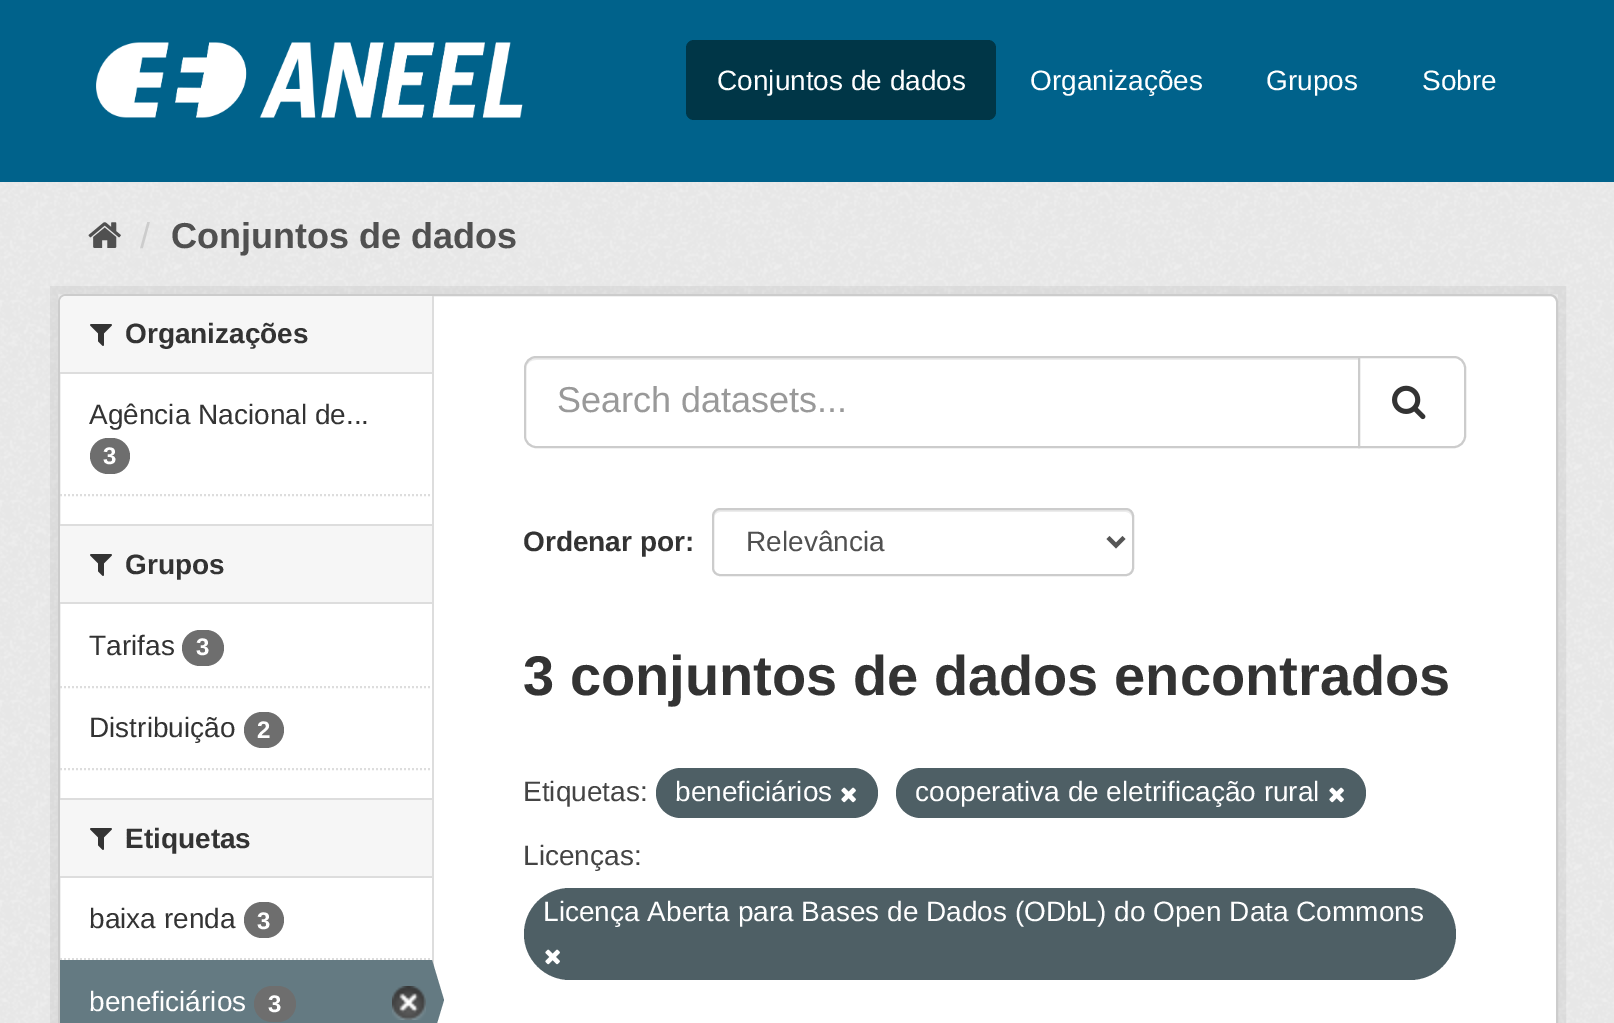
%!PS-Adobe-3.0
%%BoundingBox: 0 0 1614 1023
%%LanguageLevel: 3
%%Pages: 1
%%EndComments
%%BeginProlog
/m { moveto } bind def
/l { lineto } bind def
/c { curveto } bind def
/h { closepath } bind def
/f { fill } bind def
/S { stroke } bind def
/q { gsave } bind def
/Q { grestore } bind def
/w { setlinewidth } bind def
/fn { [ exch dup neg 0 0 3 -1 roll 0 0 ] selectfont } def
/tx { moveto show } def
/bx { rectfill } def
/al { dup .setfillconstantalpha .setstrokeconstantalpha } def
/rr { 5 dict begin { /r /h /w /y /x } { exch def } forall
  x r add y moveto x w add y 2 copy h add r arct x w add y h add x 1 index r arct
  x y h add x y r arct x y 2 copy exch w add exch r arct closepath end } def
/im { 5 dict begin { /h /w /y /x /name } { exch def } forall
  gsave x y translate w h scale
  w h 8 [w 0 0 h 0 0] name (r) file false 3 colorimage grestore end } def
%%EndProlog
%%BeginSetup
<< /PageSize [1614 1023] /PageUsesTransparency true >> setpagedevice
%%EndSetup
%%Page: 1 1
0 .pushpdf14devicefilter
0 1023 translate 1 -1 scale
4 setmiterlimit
0 0.384 0.545 setrgbcolor
0 0 1614 1023 bx
(image0.raw) 96 42 427 76 im
0 0.212 0.278 setrgbcolor
686 40 310 80 8 rr f
/LiberationSans-Regular 28 fn
1 setgray
(Conjuntos de dados) 717 90 tx
(Organizações) 1030 90 tx
(Grupos) 1266 90 tx
(Sobre) 1422 90 tx
0.933 setgray
0 182 1614 841 bx
(image1.raw) 0 182 1614 841 im
(image2.raw) 88 222 33 26 im
/LiberationSans-Regular 36 fn
0.8 setgray
(/) 140 248 tx
/LiberationSans-Bold 36 fn
0.314 setgray
(Conjuntos de dados) 171 248 tx
0.05 al
0 setgray
8 w
54 290 1508 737 rectstroke
1 al
1 setgray
59 295 1498 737 7 rr q f Q
0.8 setgray
2 w
S
0.965 setgray
66 296 m 432 296 l 432 374 l 60 374 l 60 302 l 60 298.5 62.5 296 66 296 c h f
0.867 setgray
60 372 372 2 bx
(image3.raw) 90 324 22 22 im
/LiberationSans-Bold 28 fn
0.2 setgray
(Organizações) 125 343 tx
/LiberationSans-Regular 28 fn
(Agência Nacional de...) 89 424 tx
0.431 setgray
90 438 40 36 18 rr f
/LiberationSans-Bold 24 fn
1 setgray
(3) 103 464 tx
0.867 setgray
[2 2] 0 setdash
60 495 m 432 495 l S
0.965 setgray
60 526 372 76 bx
0.867 setgray
60 524 372 2 bx
60 602 372 2 bx
(image3.raw) 90 554 22 22 im
/LiberationSans-Bold 28 fn
0.2 setgray
(Grupos) 125 574 tx
0.867 setgray
60 687 m 432 687 l S
/LiberationSans-Regular 28 fn
0.2 setgray
(Tarifas) 89 655 tx
0.431 setgray
182 630 42 36 18 rr f
/LiberationSans-Bold 24 fn
1 setgray
(3) 196 655 tx
/LiberationSans-Regular 28 fn
0.2 setgray
(Distribuição) 89 737 tx
0.431 setgray
244 712 40 36 18 rr f
/LiberationSans-Bold 24 fn
1 setgray
(2) 257 738 tx
0.867 setgray
60 769 m 432 769 l S
0.965 setgray
60 800 372 76 bx
0.867 setgray
60 798 372 2 bx
60 876 372 2 bx
(image3.raw) 90 828 22 22 im
/LiberationSans-Bold 28 fn
0.2 setgray
(Etiquetas) 125 848 tx
0.867 setgray
60 959 m 432 959 l S
/LiberationSans-Regular 28 fn
0.2 setgray
(baixa renda) 89 928 tx
0.431 setgray
244 902 40 36 18 rr f
/LiberationSans-Bold 24 fn
1 setgray
(3) 257 929 tx
0.392 0.478 0.51 setrgbcolor
60 960 372 63 bx
/LiberationSans-Regular 28 fn
1 setgray
(beneficiários) 89 1011 tx
0.431 setgray
254 986 42 36 18 rr f
/LiberationSans-Bold 24 fn
1 setgray
(3) 268 1012 tx
(image4.raw) 392 986 34 34 im
0.867 setgray
432 296 2 671 bx
0.392 0.478 0.51 setrgbcolor
432 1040 m 432 960 l 444 1000 l h f
0.925 setgray
536 360 m 1358 360 l 1358 358 l 536 358 l 529 358 526 364 526 370 c 526 364 530 360 536 360 c h f
0.8 setgray
[] 0 setdash
536 357 m 1359 357 l 1359 447 l 536 447 l 530 447 525 442 525 436 c 525 368 l 525 362 530 357 536 357 c h S
/LiberationSans-Regular 36 fn
0.6 setgray
(Search datasets...) 557 412 tx
1 setgray
1359 357 m 1454 357 l 1460 357 1465 362 1465 368 c 1465 436 l 1465 442 1460 447 1454 447 c 1359 447 l h q f Q
0.8 setgray
S
(image5.raw) 1392 385 34 35 im
/LiberationSans-Bold 28 fn
0.2 setgray
(Ordenar por:) 523 551 tx
0.925 setgray
720 512 m 1126 512 l 1129 512 1132 515 1132 518 c 1132 516 l 1132 513 1129 510 1126 510 c 720 510 l 717 510 714 513 714 516 c 714 518 l 714 515 717 512 720 512 c h f
0.8 setgray
713 509 420 66 7 rr S
0.333 setgray
4 w
1108 537.5 m 1116 545.5 l 1124 537.5 l S
/LiberationSans-Regular 28 fn
0.314 setgray
(Relevância) 746 551 tx
/LiberationSans-Bold 56 fn
0.2 setgray
(3 conjuntos de dados encontrados) 523 695 tx
/LiberationSans-Regular 28 fn
0.267 setgray
(Etiquetas:) 523 801 tx
0.306 0.373 0.396 setrgbcolor
656 768 222 50 25 rr f
1 setgray
(beneficiários) 675 801 tx
(image6.raw) 841 787 15 16 im
0.306 0.373 0.396 setrgbcolor
896 768 470 50 25 rr f
1 setgray
(cooperativa de eletrificação rural) 915 801 tx
(image6.raw) 1329 787 15 16 im
0.267 setgray
(Licenças:) 523 865 tx
0.306 0.373 0.396 setrgbcolor
524 888 932 92 46 rr f
1 setgray
(Licença Aberta para Bases de Dados \(ODbL\) do Open Data Commons) 543 921 tx
(image6.raw) 545 949 15 16 im
.poppdf14devicefilter showpage
%%EOF
